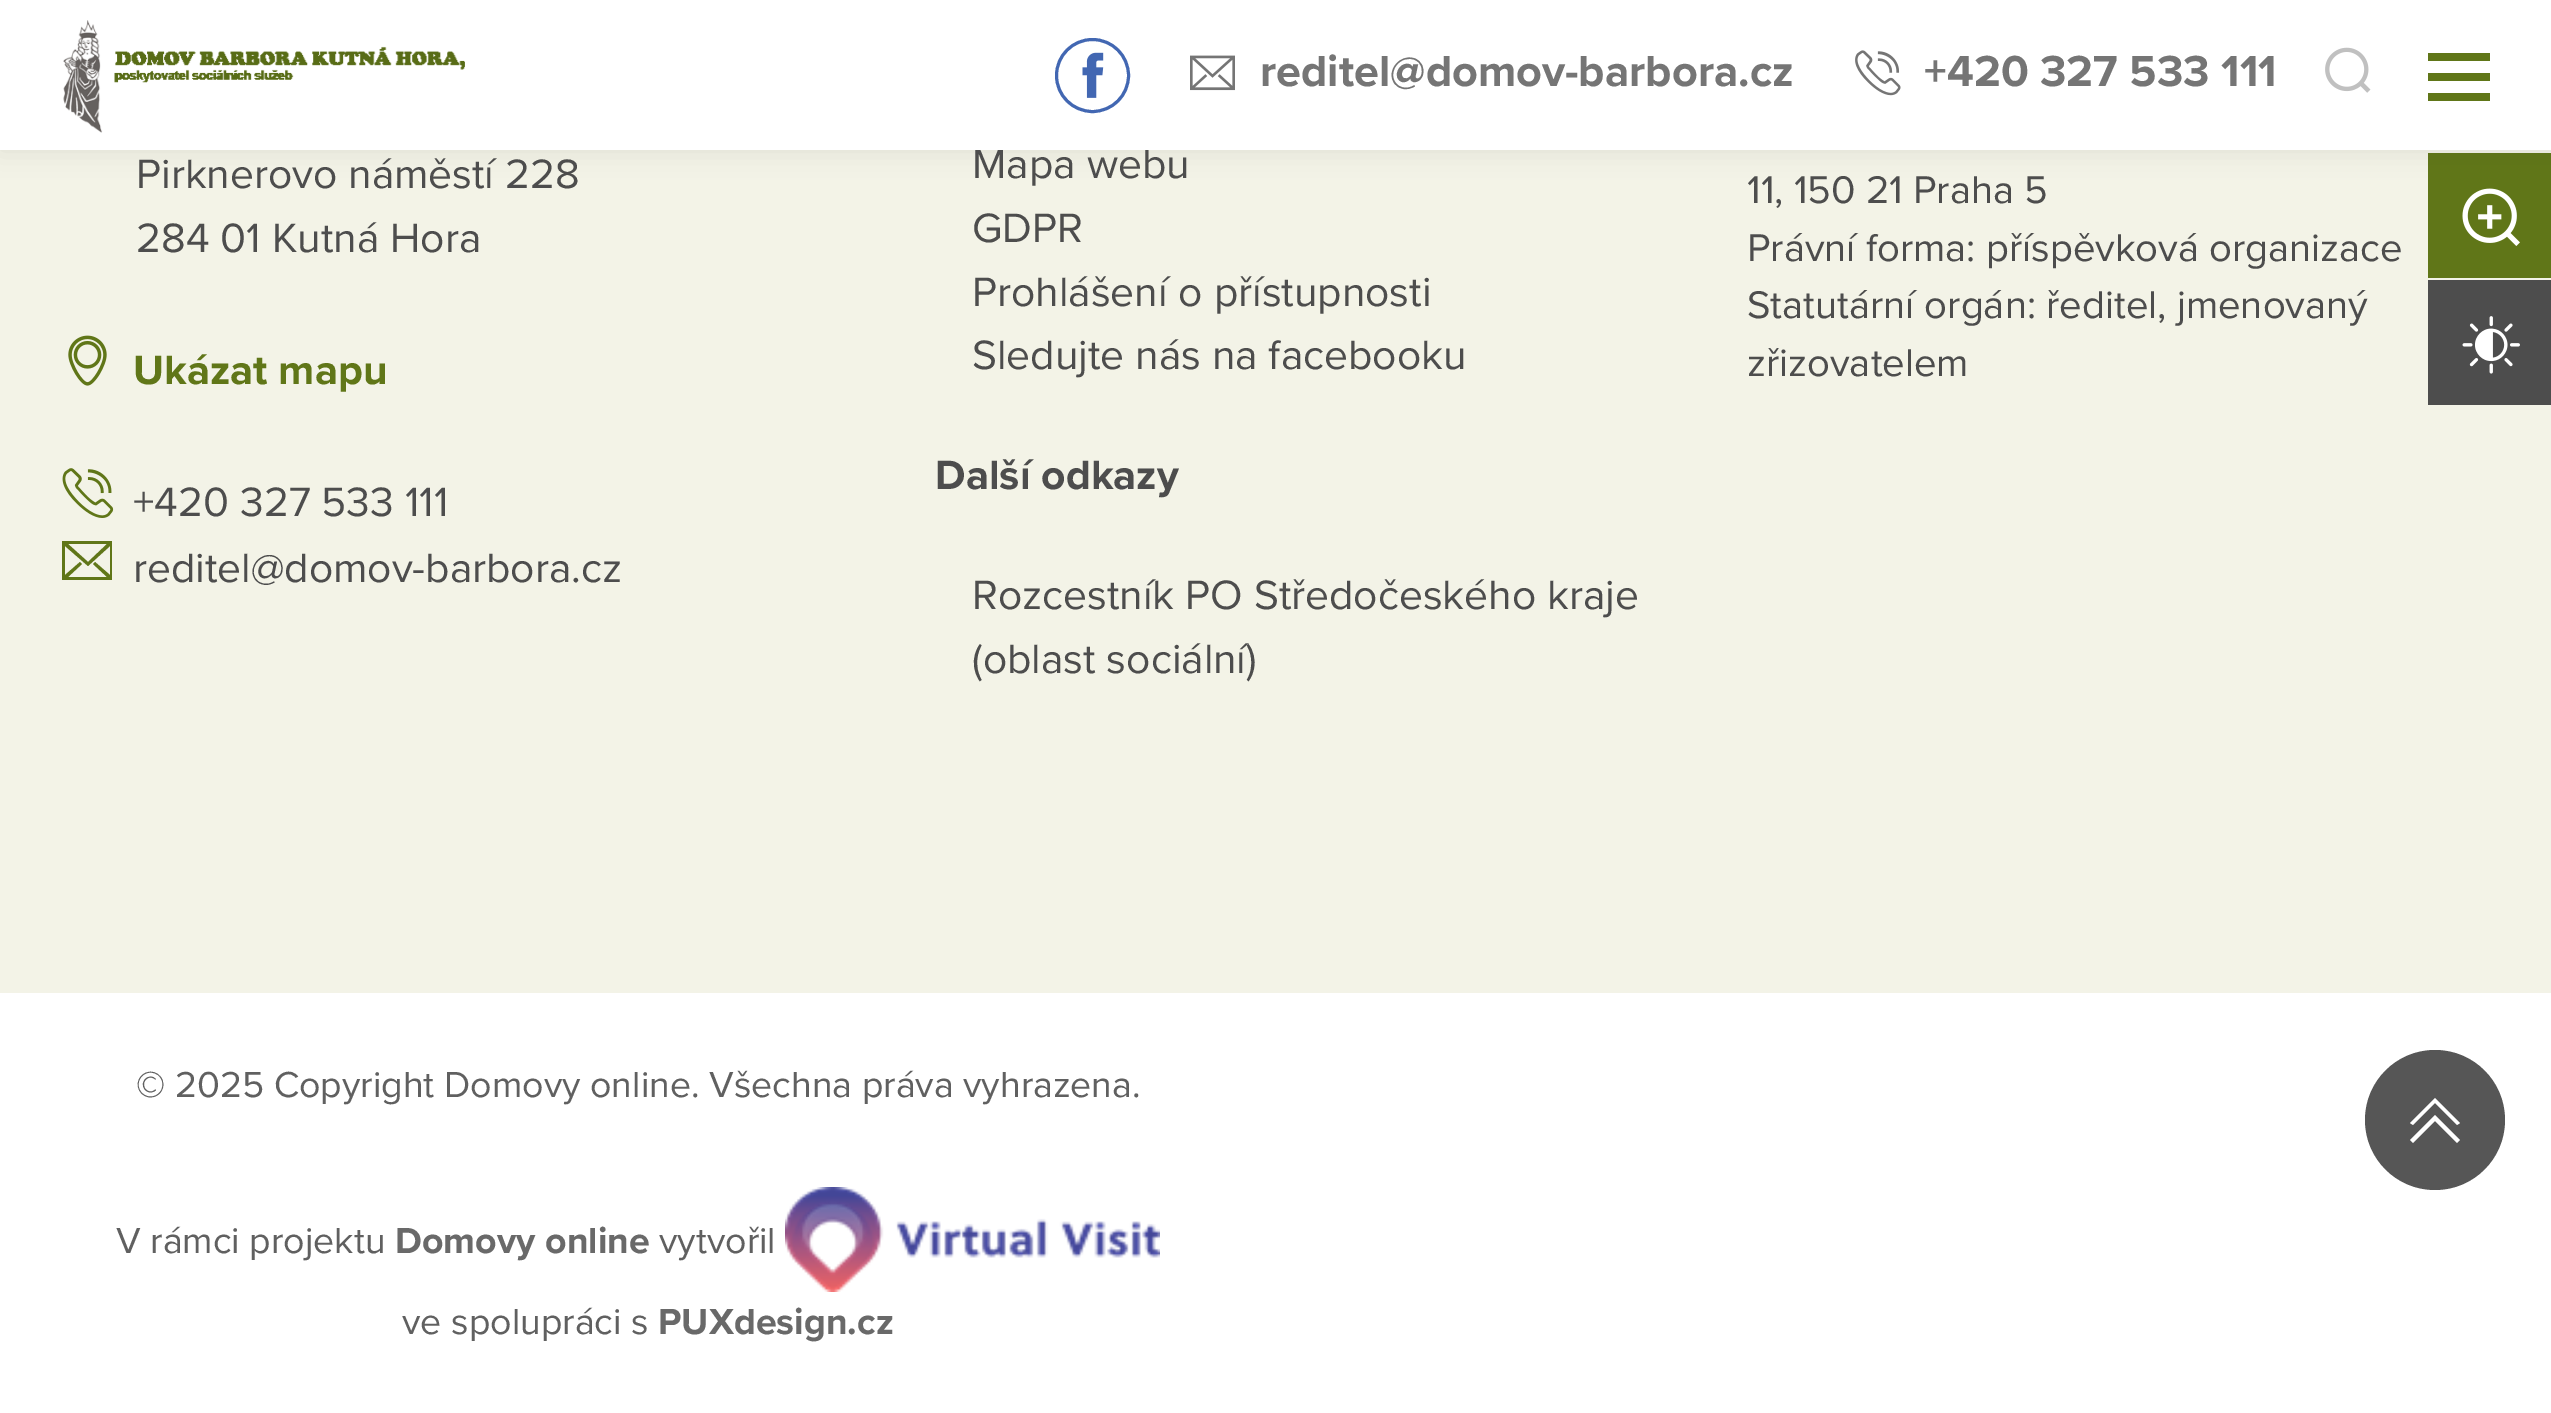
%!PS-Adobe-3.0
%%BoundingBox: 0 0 2551 1413
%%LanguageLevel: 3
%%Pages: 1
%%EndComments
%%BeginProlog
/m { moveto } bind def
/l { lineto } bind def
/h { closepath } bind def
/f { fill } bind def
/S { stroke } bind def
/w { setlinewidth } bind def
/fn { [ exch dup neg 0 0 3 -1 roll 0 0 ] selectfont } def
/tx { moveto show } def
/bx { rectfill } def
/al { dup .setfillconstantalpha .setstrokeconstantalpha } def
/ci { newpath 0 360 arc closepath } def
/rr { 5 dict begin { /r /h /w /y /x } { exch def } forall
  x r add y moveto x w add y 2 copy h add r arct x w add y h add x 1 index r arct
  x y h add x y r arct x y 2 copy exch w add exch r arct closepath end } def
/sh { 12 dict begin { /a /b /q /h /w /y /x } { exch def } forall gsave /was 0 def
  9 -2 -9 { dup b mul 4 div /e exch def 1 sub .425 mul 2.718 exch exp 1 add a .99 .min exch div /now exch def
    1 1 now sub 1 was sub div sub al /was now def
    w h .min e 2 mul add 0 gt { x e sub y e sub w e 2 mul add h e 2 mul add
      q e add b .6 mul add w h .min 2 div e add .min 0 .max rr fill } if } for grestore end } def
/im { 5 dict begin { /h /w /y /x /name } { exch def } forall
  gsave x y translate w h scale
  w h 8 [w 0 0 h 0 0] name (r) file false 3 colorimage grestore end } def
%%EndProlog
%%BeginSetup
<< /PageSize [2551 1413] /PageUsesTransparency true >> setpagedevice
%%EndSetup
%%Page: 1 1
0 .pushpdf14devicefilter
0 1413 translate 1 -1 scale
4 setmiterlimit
0.953 0.953 0.906 setrgbcolor
0 0 2551 1413 bx
0.376 0.463 0.094 setrgbcolor
2428 153 123 125 bx
(image8.raw) 2462 188 58 58 im
0 setgray
0 0 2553 150 0 12.5 0.08 sh
/ProximaNova-Regular 42.5 fn
0.302 setgray
(Mapa webu) 972 178 tx
1 setgray
0 0 2551 150 bx
(image0.raw) 63 20 402 113 im
0.259 0.404 0.698 setrgbcolor
3 w
1092.5 75.5 36 ci S
(image1.raw) 1082 52 22 46 im
(image2.raw) 1190 55 45 36 im
/ProximaNova-Bold 45 fn
0.459 setgray
(reditel@domov-barbora.cz) 1260 86 tx
(image3.raw) 1855 50 46 46 im
(+420 327 533 111) 1924 86 tx
(image4.raw) 2325 47 46 46 im
0.376 0.463 0.094 setrgbcolor
2428 73 62 8 bx
2428 53 62 8 bx
2428 93 62 8 bx
/ProximaNova-Regular 42.5 fn
0.302 setgray
(Pirknerovo náměstí 228) 136 188 tx
(284 01 Kutná Hora) 136 252 tx
(image5.raw) 68 335 39 51 im
/ProximaNova-Bold 42.5 fn
0.376 0.463 0.094 setrgbcolor
(Ukázat mapu) 133 384 tx
(image6.raw) 62 468 52 50 im
/ProximaNova-Regular 42.5 fn
0.302 setgray
(+420 327 533 111) 133 516 tx
0.376 0.463 0.094 setrgbcolor
62 541 m 62 580 l 112 580 l 112 541 l h 95 562 m 93 564 l 107 577 l 68 577 l 82 564 l 80 562 l 65 575 l 65 546 l 88 566 l 110 546 l 110 575 l h 68 544 m 107 544 l 88 562 l h f
0.302 setgray
(reditel@domov-barbora.cz) 133 582 tx
(GDPR) 972 242 tx
(Prohlášení o přístupnosti) 972 306 tx
(Sledujte nás na facebooku) 972 369 tx
/ProximaNova-Bold 42.5 fn
(Další odkazy) 935 489 tx
/ProximaNova-Regular 42.5 fn
(Rozcestník PO Středočeského kraje) 972 609 tx
(\(oblast sociální\)) 972 673 tx
/ProximaNova-Regular 40 fn
(11, 150 21 Praha 5) 1747 203 tx
(Právní forma: příspěvková organizace) 1747 261 tx
(Statutární orgán: ředitel, jmenovaný) 1747 318 tx
(zřizovatelem) 1747 376 tx
1 setgray
0 993 2551 420 bx
/ProximaNova-Regular 37.5 fn
0.376 setgray
(© 2025 Copyright Domovy online. Všechna práva vyhrazena.) 136 1097 tx
(V rámci projektu) 116 1253 tx
/ProximaNova-Bold 37.5 fn
0.412 setgray
(Domovy online) 395 1253 tx
/ProximaNova-Regular 37.5 fn
0.376 setgray
(vytvořil) 659 1253 tx
(image7.raw) 785 1187 375 105 im
(ve spolupráci s) 402 1334 tx
/ProximaNova-Bold 37.5 fn
0.412 setgray
(PUXdesign.cz) 658 1334 tx
0.302 setgray
2428 280 123 125 bx
(image9.raw) 2462 316 58 58 im
0.337 setgray
2435 1120 70 ci f
1 setgray
2435 1115 m 2460 1140 l 2457 1143 l 2435 1121 l 2413 1143 l 2410 1140 l h 2435 1103 m 2457 1125 l 2460 1123 l 2435 1098 l 2410 1123 l 2413 1125 l h f
.poppdf14devicefilter showpage
%%EOF
